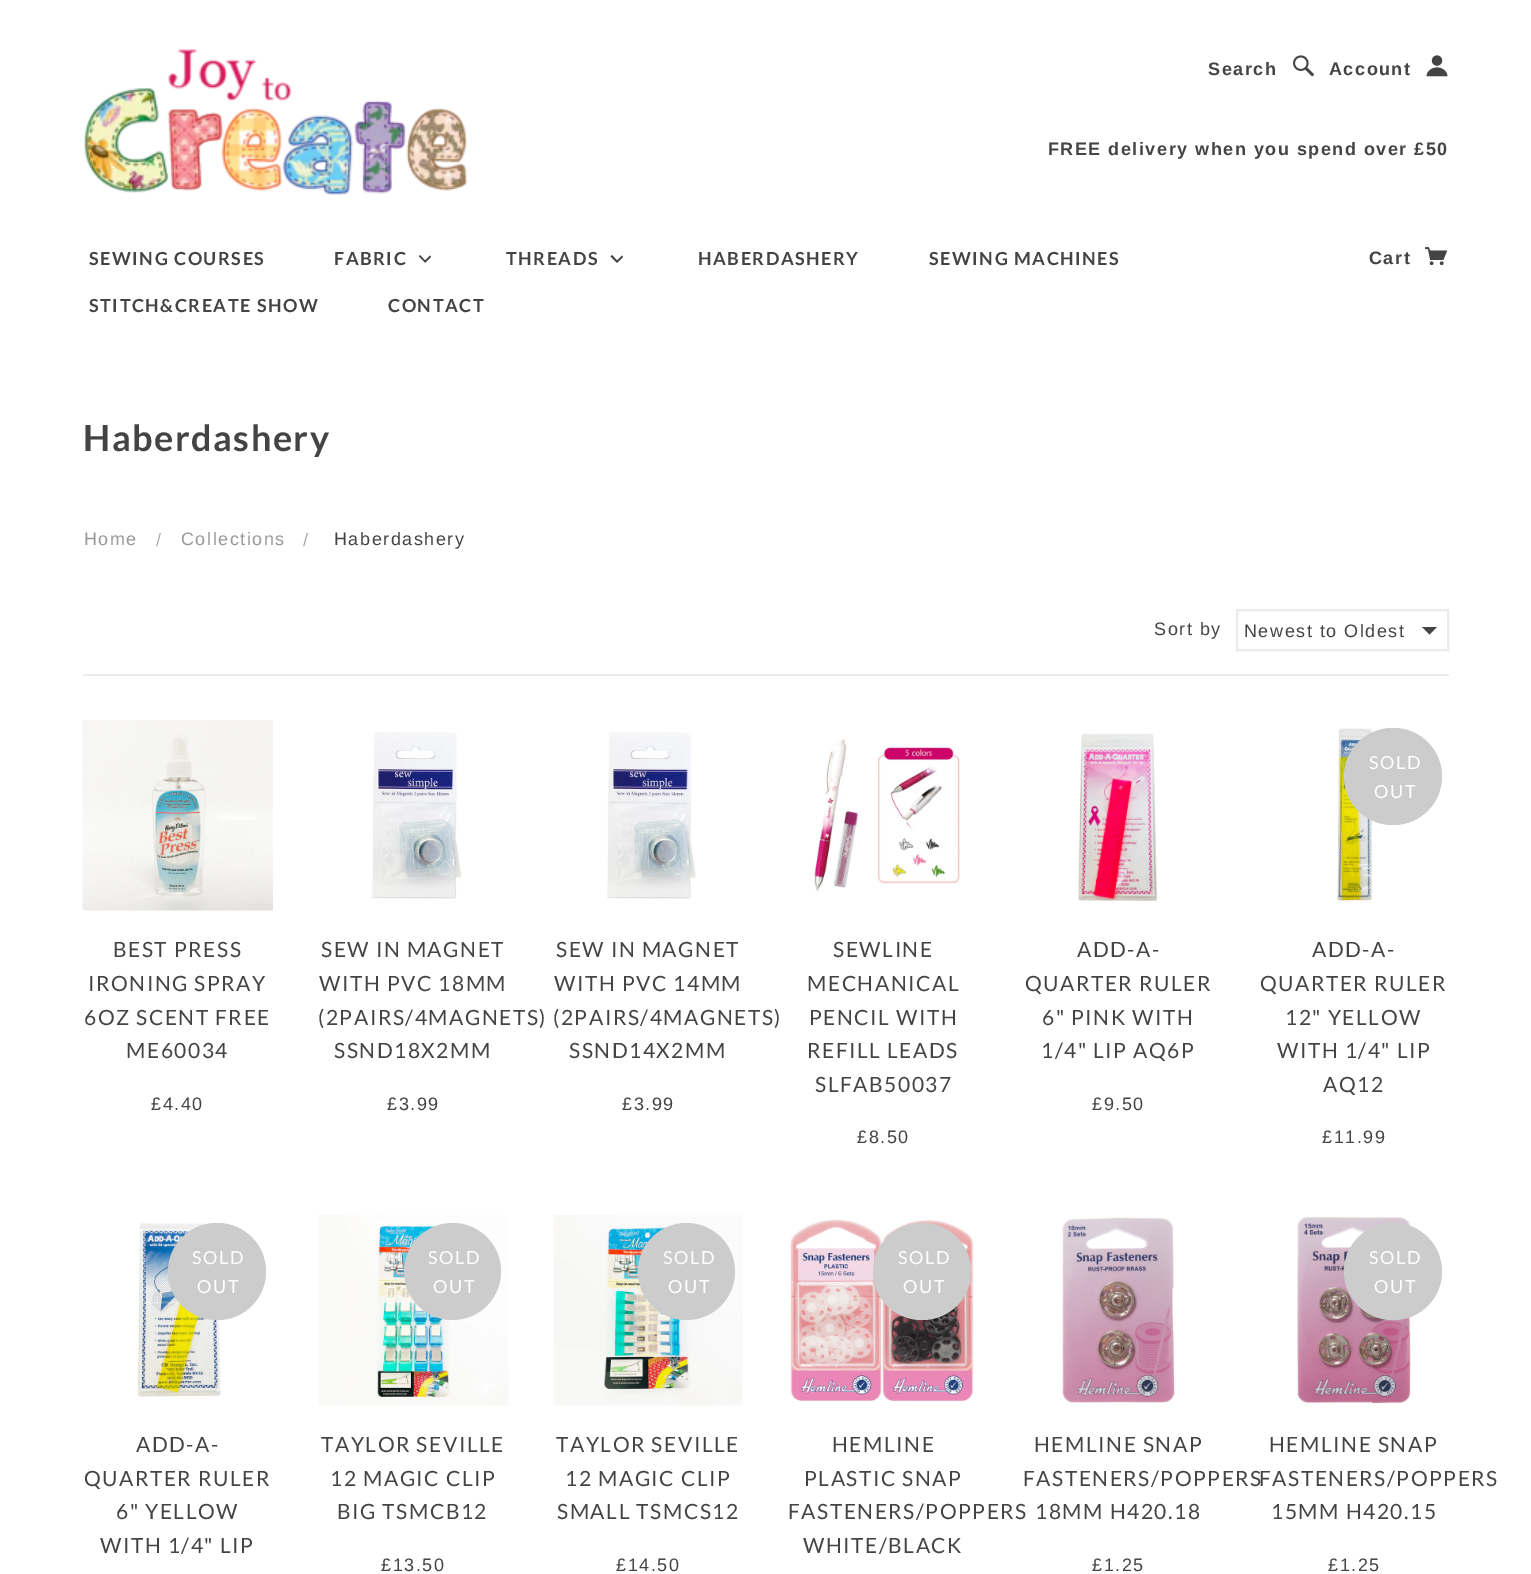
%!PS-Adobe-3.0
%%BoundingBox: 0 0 1531 1574
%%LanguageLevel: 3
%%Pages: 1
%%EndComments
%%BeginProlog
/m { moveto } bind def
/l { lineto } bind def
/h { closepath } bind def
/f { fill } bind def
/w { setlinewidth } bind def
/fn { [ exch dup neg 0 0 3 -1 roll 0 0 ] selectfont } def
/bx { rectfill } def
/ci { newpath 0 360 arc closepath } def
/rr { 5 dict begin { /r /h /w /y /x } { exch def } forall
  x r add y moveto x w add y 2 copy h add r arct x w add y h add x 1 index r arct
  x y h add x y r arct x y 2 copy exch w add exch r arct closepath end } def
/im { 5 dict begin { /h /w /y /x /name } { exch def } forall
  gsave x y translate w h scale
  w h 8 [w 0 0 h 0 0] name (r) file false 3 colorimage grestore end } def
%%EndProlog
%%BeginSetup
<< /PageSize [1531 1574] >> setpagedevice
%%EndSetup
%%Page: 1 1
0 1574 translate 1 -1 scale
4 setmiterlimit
1 setgray
0 0 1531 1574 bx
(image0.raw) 84 49 384 146 im
/LiberationSans-Bold 18 fn
0.267 setgray
1208 75 m 1.5 0 (Search) ashow
(image1.raw) 1293 55 21 22 im
1329 75 m 1.5 0 (Account) ashow
(image2.raw) 1426 55 22 22 im
1048 155 m 1.5 0 (FREE delivery when you spend over £50) ashow
/Lato-Bold 18 fn
89 265 m 1.5 0 (SEWING COURSES) ashow
334 265 m 1.5 0 (FABRIC) ashow
430 255.5 m 431 257 l 425.5 262.5 l 424 261.5 l h f
420 255 m 426 261.5 l 425 262.5 l 419 256.5 l h f
506 265 m 1.5 0 (THREADS) ashow
622 255.5 m 623 257 l 617.5 262.5 l 616 261.5 l h f
612 255 m 618 261.5 l 616.5 262.5 l 610.5 256.5 l h f
698 265 m 1.5 0 (HABERDASHERY) ashow
929 265 m 1.5 0 (SEWING MACHINES) ashow
89 312 m 1.5 0 (STITCH&CREATE SHOW) ashow
388 312 m 1.5 0 (CONTACT) ashow
/LiberationSans-Bold 18 fn
1369 264 m 1.5 0 (Cart) ashow
(image3.raw) 1425 247 23 19 im
/Lato-Bold 36 fn
83 451 m 1.5 0 (Haberdashery) ashow
/LiberationSans-Regular 18 fn
0.6 setgray
84 545 m 1.5 0 (Home) ashow
0.667 setgray
156 546 m 1.5 0 (/) ashow
0.6 setgray
181 545 m 1.5 0 (Collections) ashow
0.667 setgray
303 546 m 1.5 0 (/) ashow
0.267 setgray
334 545 m 1.5 0 (Haberdashery) ashow
1154 635 m 1.5 0 (Sort by) ashow
0.922 setgray
2 w
1237 610 211 40 rectstroke
0.267 setgray
1244 637 m 1.5 0 (Newest to Oldest) ashow
1422 627 m 1437 627 l 1429.5 634.5 l h f
0.922 setgray
83 674 1366 2 bx
(image4.raw) 82 720 191 191 im
/Lato-Regular 21 fn
0.267 setgray
113 957 m 1.5 0 (BEST PRESS) ashow
88 991 m 1.5 0 (IRONING SPRAY) ashow
84 1025 m 1.5 0 (6OZ SCENT FREE) ashow
126 1058 m 1.5 0 (ME60034) ashow
/LiberationSans-Regular 18 fn
151 1110 m 1.5 0 (£4.40) ashow
(image5.raw) 372 732 90 167 im
/Lato-Regular 21 fn
321 957 m 1.5 0 (SEW IN MAGNET) ashow
319 991 m 1.5 0 (WITH PVC 18MM) ashow
318 1025 m 1.5 0 (\(2PAIRS/4MAGNETS\)) ashow
334 1058 m 1.5 0 (SSND18X2MM) ashow
/LiberationSans-Regular 18 fn
387 1110 m 1.5 0 (£3.99) ashow
(image6.raw) 607 732 89 167 im
/Lato-Regular 21 fn
556 957 m 1.5 0 (SEW IN MAGNET) ashow
554 991 m 1.5 0 (WITH PVC 14MM) ashow
553 1025 m 1.5 0 (\(2PAIRS/4MAGNETS\)) ashow
569 1058 m 1.5 0 (SSND14X2MM) ashow
/LiberationSans-Regular 18 fn
622 1110 m 1.5 0 (£3.99) ashow
(image7.raw) 814 739 146 153 im
/Lato-Regular 21 fn
833 957 m 1.5 0 (SEWLINE) ashow
807 991 m 1.5 0 (MECHANICAL) ashow
809 1025 m 1.5 0 (PENCIL WITH) ashow
807 1058 m 1.5 0 (REFILL LEADS) ashow
815 1092 m 1.5 0 (SLFAB50037) ashow
/LiberationSans-Regular 18 fn
857 1143 m 1.5 0 (£8.50) ashow
(image8.raw) 1078 733 80 168 im
/Lato-Regular 21 fn
1077 957 m 1.5 0 (ADD-A-) ashow
1025 991 m 1.5 0 (QUARTER RULER) ashow
1042 1025 m 1.5 0 (6" PINK WITH) ashow
1041 1058 m 1.5 0 (1/4" LIP AQ6P) ashow
/LiberationSans-Regular 18 fn
1092 1110 m 1.5 0 (£9.50) ashow
(image9.raw) 1337 728 35 173 im
0.8 setgray
1344 728 98 97 48.5 rr f
/Lato-Regular 18 fn
1 setgray
1369 769 m 1.5 0 (SOLD) ashow
1374 798 m 1.5 0 (OUT) ashow
/Lato-Regular 21 fn
0.267 setgray
1312 957 m 1.5 0 (ADD-A-) ashow
1260 991 m 1.5 0 (QUARTER RULER) ashow
1285 1025 m 1.5 0 (12" YELLOW) ashow
1277 1058 m 1.5 0 (WITH 1/4" LIP) ashow
1323 1092 m 1.5 0 (AQ12) ashow
/LiberationSans-Regular 18 fn
1322 1143 m 1.5 0 (£11.99) ashow
(image10.raw) 138 1223 83 174 im
0.8 setgray
168 1223 98 97 48.5 rr f
/Lato-Regular 18 fn
1 setgray
192 1264 m 1.5 0 (SOLD) ashow
197 1293 m 1.5 0 (OUT) ashow
/Lato-Regular 21 fn
0.267 setgray
136 1452 m 1.5 0 (ADD-A-) ashow
84 1486 m 1.5 0 (QUARTER RULER) ashow
116 1519 m 1.5 0 (6" YELLOW) ashow
100 1553 m 1.5 0 (WITH 1/4" LIP) ashow
(image11.raw) 318 1215 191 191 im
0.8 setgray
452.5 1271.5 48.5 ci f
/Lato-Regular 18 fn
1 setgray
428 1264 m 1.5 0 (SOLD) ashow
433 1293 m 1.5 0 (OUT) ashow
/Lato-Regular 21 fn
0.267 setgray
321 1452 m 1.5 0 (TAYLOR SEVILLE) ashow
330 1486 m 1.5 0 (12 MAGIC CLIP) ashow
337 1519 m 1.5 0 (BIG TSMCB12) ashow
/LiberationSans-Regular 18 fn
381 1571 m 1.5 0 (£13.50) ashow
(image12.raw) 553 1215 190 191 im
0.8 setgray
686.5 1271.5 48.5 ci f
/Lato-Regular 18 fn
1 setgray
663 1264 m 1.5 0 (SOLD) ashow
668 1293 m 1.5 0 (OUT) ashow
/Lato-Regular 21 fn
0.267 setgray
556 1452 m 1.5 0 (TAYLOR SEVILLE) ashow
565 1486 m 1.5 0 (12 MAGIC CLIP) ashow
557 1519 m 1.5 0 (SMALL TSMCS12) ashow
/LiberationSans-Regular 18 fn
616 1571 m 1.5 0 (£14.50) ashow
(image13.raw) 790 1219 184 183 im
0.8 setgray
873 1223 98 97 48.5 rr f
/Lato-Regular 18 fn
1 setgray
898 1264 m 1.5 0 (SOLD) ashow
903 1293 m 1.5 0 (OUT) ashow
/Lato-Regular 21 fn
0.267 setgray
832 1452 m 1.5 0 (HEMLINE) ashow
804 1486 m 1.5 0 (PLASTIC SNAP) ashow
788 1519 m 1.5 0 (FASTENERS/POPPERS) ashow
803 1553 m 1.5 0 (WHITE/BLACK) ashow
(image14.raw) 1062 1217 113 186 im
1034 1452 m 1.5 0 (HEMLINE SNAP) ashow
1023 1486 m 1.5 0 (FASTENERS/POPPERS) ashow
1035 1519 m 1.5 0 (18MM H420.18) ashow
/LiberationSans-Regular 18 fn
1092 1571 m 1.5 0 (£1.25) ashow
(image15.raw) 1297 1216 114 188 im
0.8 setgray
1344 1223 98 97 48.5 rr f
/Lato-Regular 18 fn
1 setgray
1369 1264 m 1.5 0 (SOLD) ashow
1374 1293 m 1.5 0 (OUT) ashow
/Lato-Regular 21 fn
0.267 setgray
1269 1452 m 1.5 0 (HEMLINE SNAP) ashow
1259 1486 m 1.5 0 (FASTENERS/POPPERS) ashow
1271 1519 m 1.5 0 (15MM H420.15) ashow
/LiberationSans-Regular 18 fn
1328 1571 m 1.5 0 (£1.25) ashow
showpage
%%EOF
